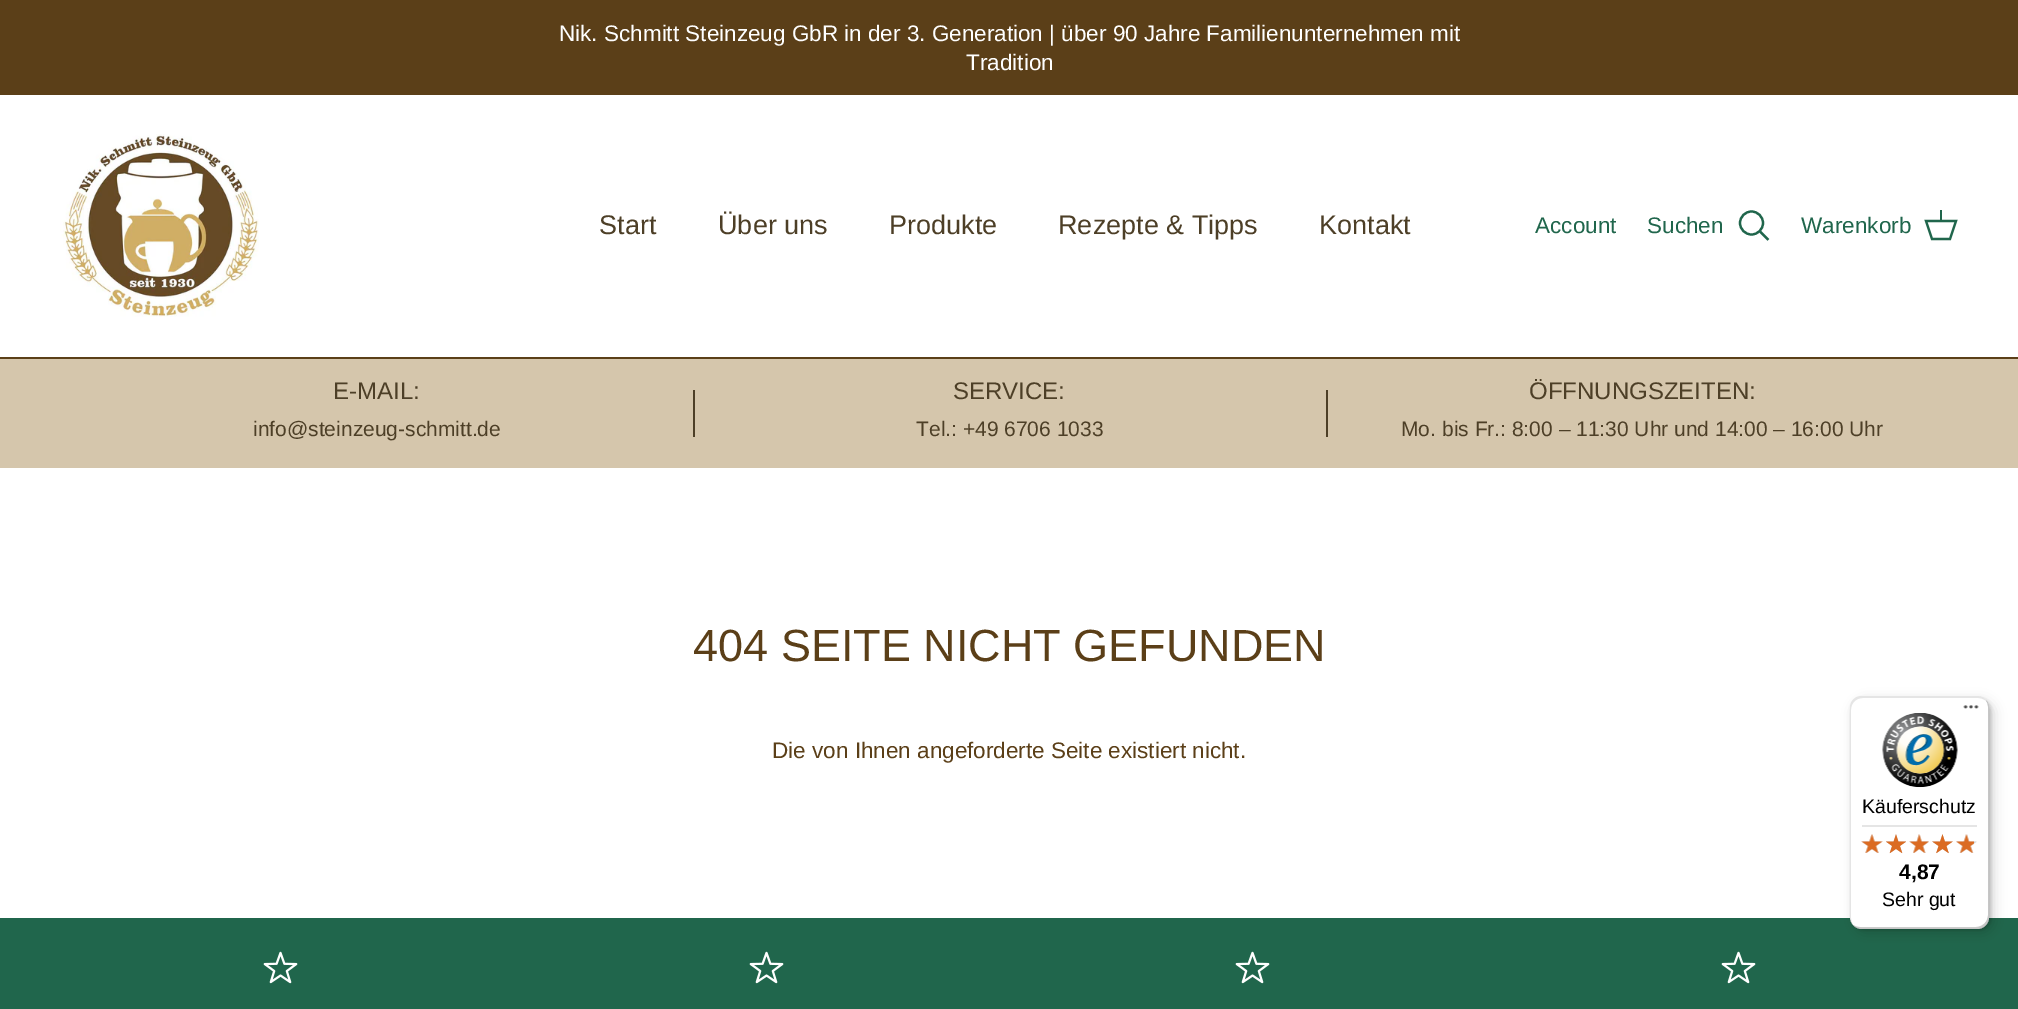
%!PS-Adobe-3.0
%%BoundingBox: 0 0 2018 1009
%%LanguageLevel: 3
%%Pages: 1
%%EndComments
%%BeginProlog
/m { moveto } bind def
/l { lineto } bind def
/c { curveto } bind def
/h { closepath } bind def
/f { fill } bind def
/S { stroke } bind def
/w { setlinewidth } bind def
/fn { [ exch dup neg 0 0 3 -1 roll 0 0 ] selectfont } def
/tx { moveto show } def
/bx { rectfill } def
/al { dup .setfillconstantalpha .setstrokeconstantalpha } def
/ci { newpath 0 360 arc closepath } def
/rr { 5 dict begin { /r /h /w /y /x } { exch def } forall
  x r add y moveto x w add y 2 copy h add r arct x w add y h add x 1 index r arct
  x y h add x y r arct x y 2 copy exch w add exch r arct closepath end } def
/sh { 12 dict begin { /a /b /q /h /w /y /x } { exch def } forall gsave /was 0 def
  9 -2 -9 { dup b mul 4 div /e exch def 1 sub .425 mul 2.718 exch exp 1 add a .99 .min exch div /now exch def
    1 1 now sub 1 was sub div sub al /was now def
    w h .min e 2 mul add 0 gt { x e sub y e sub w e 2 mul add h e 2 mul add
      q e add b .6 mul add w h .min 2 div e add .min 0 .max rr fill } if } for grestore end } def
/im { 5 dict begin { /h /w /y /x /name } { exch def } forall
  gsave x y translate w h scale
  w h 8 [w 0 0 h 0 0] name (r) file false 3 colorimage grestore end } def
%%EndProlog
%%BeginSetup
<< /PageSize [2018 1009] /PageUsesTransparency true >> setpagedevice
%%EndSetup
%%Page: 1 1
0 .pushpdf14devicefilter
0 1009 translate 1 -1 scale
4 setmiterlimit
1 setgray
0 0 2018 1009 bx
0.357 0.247 0.094 setrgbcolor
0 0 2018 95 bx
/LiberationSans-Regular 22.5 fn
1 setgray
(Nik. Schmitt Steinzeug GbR in der 3. Generation | über 90 Jahre Familienunternehmen mit) 559 41 tx
(Tradition) 966 70 tx
0.357 0.247 0.094 setrgbcolor
0 357 2018 2 bx
(image0.raw) 60 134 199 183 im
/LiberationSans-Regular 27 fn
0.302 0.247 0.153 setrgbcolor
(Start) 599 234 tx
(Über uns) 718 234 tx
(Produkte) 889 234 tx
(Rezepte & Tipps) 1058 234 tx
(Kontakt) 1319 234 tx
/LiberationSans-Regular 22.5 fn
0.125 0.4 0.298 setrgbcolor
(Account) 1535 233 tx
(Suchen) 1647 233 tx
2.2 w
1751.5 223 11.5 ci S
2 setlinecap
1761 232.5 m 1767.5 239 l S
(Warenkorb) 1801 233 tx
0 setlinecap
1926 221 m 1956 221 l 1950 239 l 1932 239 l h S
1940 210 2 12 bx
0.835 0.776 0.675 setrgbcolor
0 359 2018 109 bx
/LiberationSans-Regular 24 fn
0.302 0.247 0.153 setrgbcolor
(E-MAIL:) 333 399 tx
/LiberationSans-Regular 21 fn
(info@steinzeug-schmitt.de) 253 436 tx
693 390 2 47 bx
/LiberationSans-Regular 24 fn
(SERVICE:) 953 399 tx
/LiberationSans-Regular 21 fn
(Tel.: +49 6706 1033) 916 436 tx
1326 390 2 47 bx
/LiberationSans-Regular 24 fn
(ÖFFNUNGSZEITEN:) 1529 399 tx
/LiberationSans-Regular 21 fn
(Mo. bis Fr.: 8:00 – 11:30 Uhr und 14:00 – 16:00 Uhr) 1401 436 tx
/LiberationSans-Regular 45 fn
0.357 0.247 0.094 setrgbcolor
(404 SEITE NICHT GEFUNDEN) 693 661 tx
/LiberationSans-Regular 22.5 fn
(Die von Ihnen angeforderte Seite existiert nicht.) 772 758 tx
0.125 0.4 0.298 setrgbcolor
0 918 2018 91 bx
0 setgray
1854 701 140 232 12 6 0.15 sh
1851 698 140 232 12 1.5 0.15 sh
1 setgray
1850 696 139 233 12 rr f
0.1 al
0 setgray
1863 698 m 1978 698 l 1982 698 1986 700 1988 703 c 1986 699 1982 696 1977 696 c 1862 696 l 1855 696 1850 701 1850 708 c 1850 917 l 1850 920 1851 923 1853 925 c 1852 923 1851 921 1851 918 c 1851 710 l 1851 703 1856 698 1863 698 c h f
0.2 al
1853 925 m 1855 927 1858 929 1862 929 c 1977 929 l 1984 929 1989 924 1989 917 c 1989 708 l 1989 705 1988 703 1986 701 c 1987 702 1988 704 1988 706 c 1988 915 l 1988 922 1982 927 1976 927 c 1860 927 l 1857 927 1855 926 1853 925 c h f
0.196 setgray
1853 925 m 1855 927 1858 929 1862 929 c 1977 929 l 1984 929 1989 924 1989 917 c 1989 708 l 1989 705 1988 702 1986 700 c 1987 702 1988 704 1988 707 c 1988 916 l 1988 922 1983 928 1976 928 c 1861 928 l 1858 928 1855 927 1853 925 c h f
0.3 al
1 setgray
1853 925 m 1855 927 1858 929 1862 929 c 1977 929 l 1984 929 1989 924 1989 917 c 1989 708 l 1989 704 1987 701 1985 699 c 1987 701 1988 704 1988 707 c 1988 916 l 1988 922 1983 928 1976 928 c 1861 928 l 1858 928 1855 927 1853 925 c h f
1 al
(image1.raw) 1963 705 16 4 im
(image2.raw) 1882 713 76 75 im
/LiberationSans-Regular 19.5 fn
0 setgray
(Käuferschutz) 1862 813 tx
0.898 setgray
1862 825 115 2 bx
(image3.raw) 1861 834 22 19 im
(image4.raw) 1886 834 20 19 im
(image5.raw) 1909 834 20 19 im
(image6.raw) 1932 834 21 19 im
(image7.raw) 1956 834 21 19 im
(image8.raw) 1861 834 22 19 im
(image9.raw) 1886 834 20 20 im
(image10.raw) 1909 834 20 19 im
(image11.raw) 1932 834 21 20 im
(image12.raw) 1956 834 18 19 im
/LiberationSans-Bold 21 fn
0 setgray
(4,87) 1899 879 tx
/LiberationSans-Regular 19.5 fn
(Sehr gut) 1882 906 tx
(image13.raw) 263 951 35 33 im
(image13.raw) 749 951 35 33 im
(image13.raw) 1235 951 35 33 im
(image13.raw) 1721 951 35 33 im
.poppdf14devicefilter showpage
%%EOF
